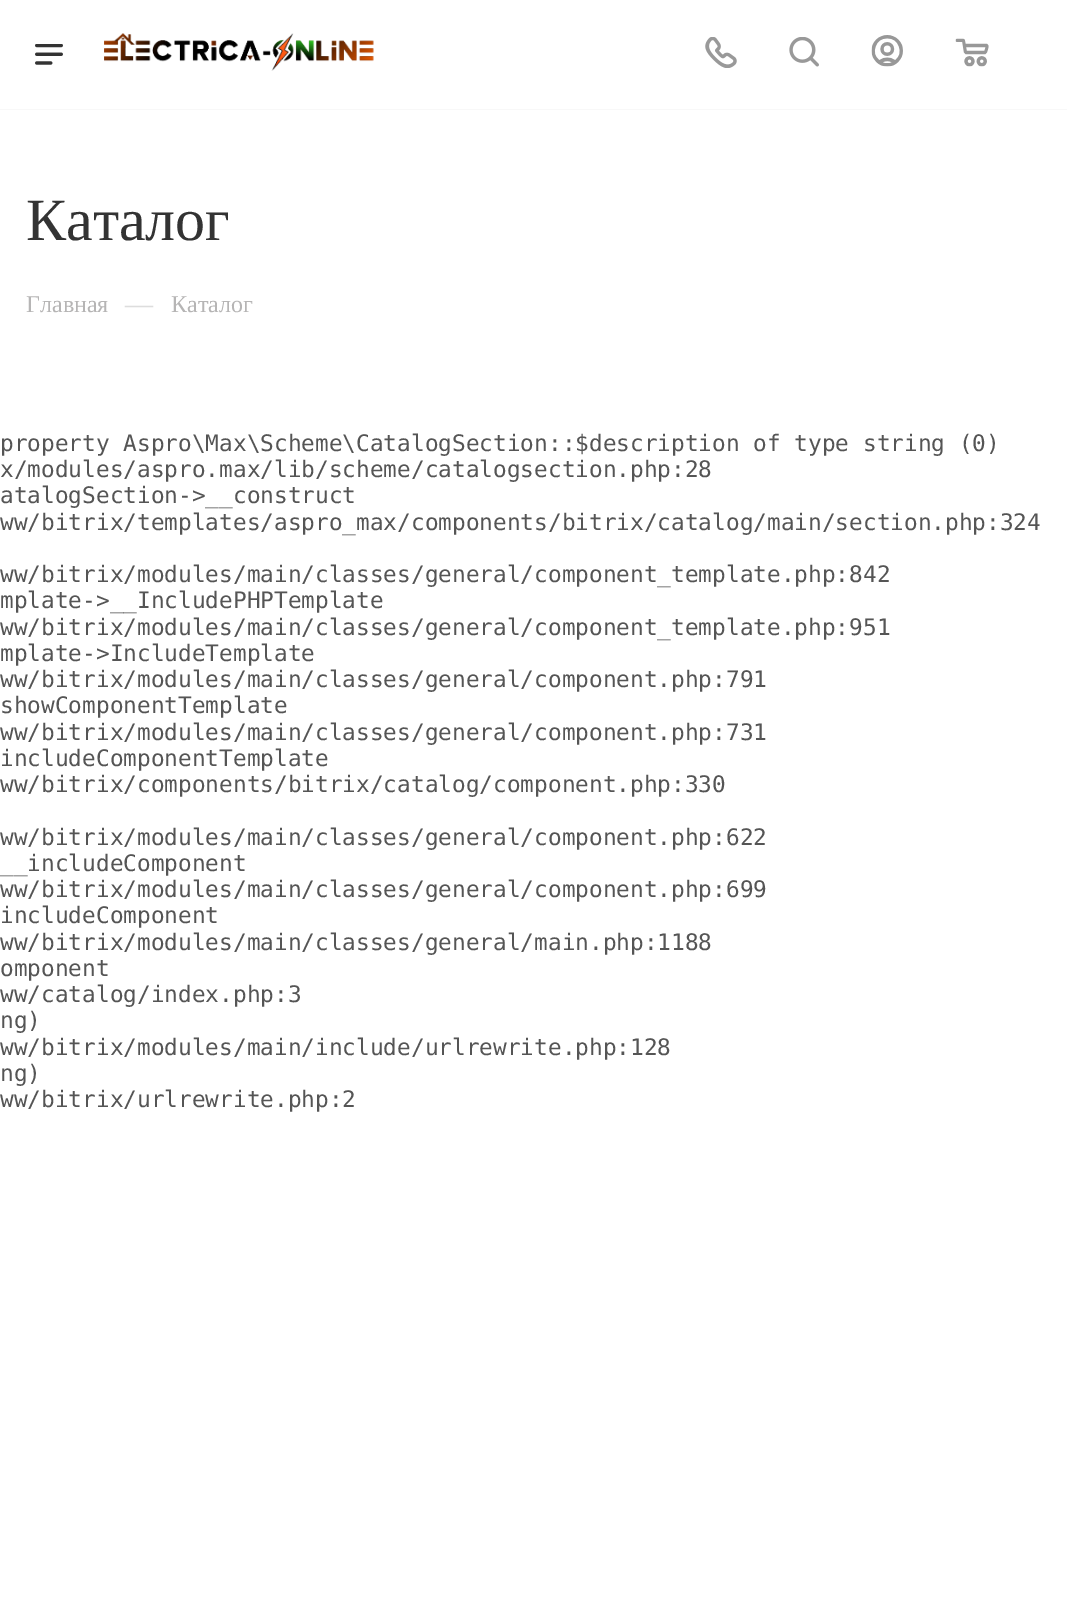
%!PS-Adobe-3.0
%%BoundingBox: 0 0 1067 1598
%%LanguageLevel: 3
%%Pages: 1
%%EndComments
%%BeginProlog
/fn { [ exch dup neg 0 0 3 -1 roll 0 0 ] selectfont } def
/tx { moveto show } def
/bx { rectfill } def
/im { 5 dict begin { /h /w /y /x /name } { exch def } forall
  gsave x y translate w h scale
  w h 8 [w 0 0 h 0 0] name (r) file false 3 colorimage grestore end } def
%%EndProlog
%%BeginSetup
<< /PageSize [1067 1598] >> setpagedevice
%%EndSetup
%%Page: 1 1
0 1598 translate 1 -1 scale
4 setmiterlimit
1 setgray
0 0 1067 1598 bx
0.973 setgray
0 109 1067 1 bx
(image0.raw) 35 44 28 21 im
(image1.raw) 104 33 270 38 im
(image2.raw) 705 37 32 31 im
(image3.raw) 789 37 30 30 im
(image4.raw) 871 35 32 32 im
(image5.raw) 955 38 34 29 im
/LiberationSerif-Regular 60 fn
0.2 setgray
(Каталог) 26 240 tx
/LiberationSerif-Regular 24 fn
0.714 0.71 0.71 setrgbcolor
(Главная) 26 312 tx
/LiberationSerif-Regular 28 fn
0.867 setgray
(—) 125 313 tx
/LiberationSerif-Regular 24 fn
0.714 0.71 0.71 setrgbcolor
(Каталог) 171 312 tx
/DejaVuSansMono-Regular 22.75 fn
0.333 setgray
(property Aspro\\Max\\Scheme\\CatalogSection::$description of type string \(0\)) 0 451 tx
(x/modules/aspro.max/lib/scheme/catalogsection.php:28) 0 477 tx
(atalogSection->__construct) 0 503 tx
(ww/bitrix/templates/aspro_max/components/bitrix/catalog/main/section.php:324) 0 530 tx
(ww/bitrix/modules/main/classes/general/component_template.php:842) 0 582 tx
(mplate->__IncludePHPTemplate) 0 608 tx
(ww/bitrix/modules/main/classes/general/component_template.php:951) 0 635 tx
(mplate->IncludeTemplate) 0 661 tx
(ww/bitrix/modules/main/classes/general/component.php:791) 0 687 tx
(showComponentTemplate) 0 713 tx
(ww/bitrix/modules/main/classes/general/component.php:731) 0 740 tx
(includeComponentTemplate) 0 766 tx
(ww/bitrix/components/bitrix/catalog/component.php:330) 0 792 tx
(ww/bitrix/modules/main/classes/general/component.php:622) 0 845 tx
(__includeComponent) 0 871 tx
(ww/bitrix/modules/main/classes/general/component.php:699) 0 897 tx
(includeComponent) 0 923 tx
(ww/bitrix/modules/main/classes/general/main.php:1188) 0 950 tx
(omponent) 0 976 tx
(ww/catalog/index.php:3) 0 1002 tx
(ng\)) 0 1028 tx
(ww/bitrix/modules/main/include/urlrewrite.php:128) 0 1055 tx
(ng\)) 0 1081 tx
(ww/bitrix/urlrewrite.php:2) 0 1107 tx
showpage
%%EOF
